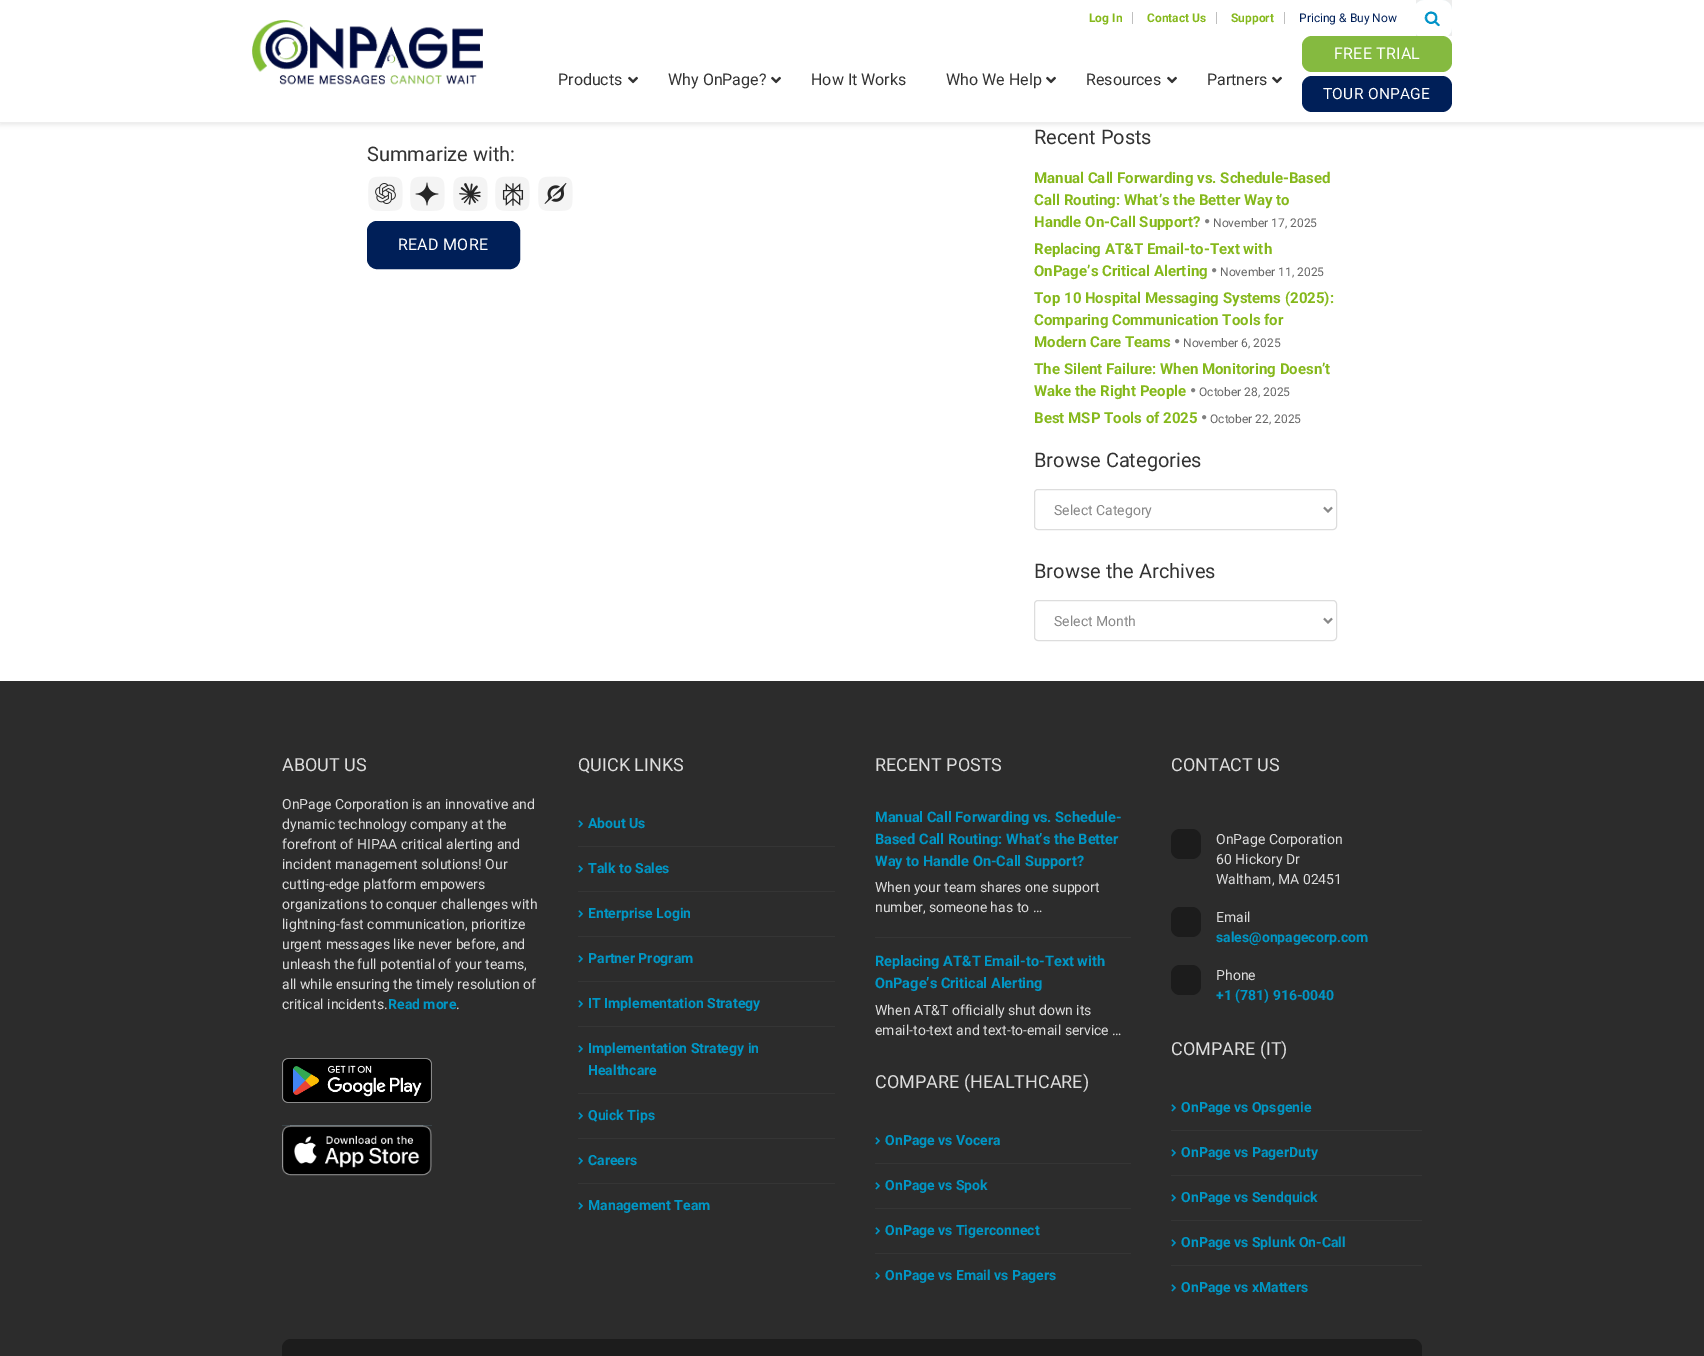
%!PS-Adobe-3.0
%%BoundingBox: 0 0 1704 1356
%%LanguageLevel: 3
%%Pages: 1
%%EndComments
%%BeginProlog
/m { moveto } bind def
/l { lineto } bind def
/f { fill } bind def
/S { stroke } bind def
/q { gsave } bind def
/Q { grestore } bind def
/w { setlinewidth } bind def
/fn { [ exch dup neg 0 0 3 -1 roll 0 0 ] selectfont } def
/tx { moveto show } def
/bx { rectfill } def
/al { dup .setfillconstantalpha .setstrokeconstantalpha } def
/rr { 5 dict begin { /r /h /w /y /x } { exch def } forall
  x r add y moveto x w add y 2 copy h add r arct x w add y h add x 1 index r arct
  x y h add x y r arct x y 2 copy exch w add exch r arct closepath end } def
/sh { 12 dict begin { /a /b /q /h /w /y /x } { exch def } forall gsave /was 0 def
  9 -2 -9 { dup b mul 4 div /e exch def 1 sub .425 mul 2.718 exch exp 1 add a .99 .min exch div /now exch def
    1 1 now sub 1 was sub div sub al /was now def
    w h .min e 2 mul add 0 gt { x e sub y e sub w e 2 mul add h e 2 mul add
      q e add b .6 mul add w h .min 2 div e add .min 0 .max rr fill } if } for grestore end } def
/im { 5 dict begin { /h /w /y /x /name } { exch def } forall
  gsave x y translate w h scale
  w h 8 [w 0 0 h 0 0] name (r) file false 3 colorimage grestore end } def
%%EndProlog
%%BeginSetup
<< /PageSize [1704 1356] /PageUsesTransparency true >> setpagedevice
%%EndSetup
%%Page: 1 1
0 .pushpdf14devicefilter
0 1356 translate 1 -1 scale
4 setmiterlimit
1 setgray
0 0 1704 1356 bx
0 setgray
0 2 1704 123 0 2 0.08 sh
1 setgray
0 0 1704 122 bx
0.933 setgray
0 122 1704 1 bx
(image0.raw) 252 20 231 65 im
/Roboto-Bold 12 fn
0.522 0.722 0.106 setrgbcolor
(Log In) 1089 22 tx
0.749 setgray
1132 12 1 12 bx
0.522 0.722 0.106 setrgbcolor
(Contact Us) 1147 22 tx
0.749 setgray
1216 12 1 12 bx
0.522 0.722 0.106 setrgbcolor
(Support) 1231 22 tx
0.749 setgray
1284 12 1 12 bx
/Roboto-Regular 12 fn
0 0.122 0.345 setrgbcolor
(Pricing & Buy Now) 1299 22 tx
0.929 setgray
1416 0 36 36 bx
0.522 0.729 0.251 setrgbcolor
1302 36 150 36 10 rr f
q
1416 0 36 36 rectclip
0.906 0.961 0.98 setrgbcolor
1414 0 38 38 10 rr f
Q
(image1.raw) 1416 0 36 36 im
/Roboto-Regular 16 fn
0.2 setgray
(Products) 558 85 tx
(image2.raw) 628 76 10 8 im
(Why OnPage?) 668 85 tx
(image2.raw) 771 76 10 8 im
(How It Works) 811 85 tx
(Who We Help) 946 85 tx
(image2.raw) 1046 76 10 8 im
(Resources) 1086 85 tx
(image2.raw) 1167 76 10 8 im
(Partners) 1207 85 tx
(image2.raw) 1272 76 10 8 im
1 setgray
1334 59 m 0.25 0 (FREE TRIAL) ashow
0 0.122 0.345 setrgbcolor
1302 76 150 36 10 rr f
/Roboto-Regular 15.5 fn
1 setgray
1323 99 m 0.25 0 (TOUR ONPAGE) ashow
/Roboto-Regular 20 fn
0.2 setgray
(Summarize with:) 367 161 tx
(image3.raw) 368 176 35 35 im
(image4.raw) 410 176 35 35 im
(image5.raw) 453 176 35 35 im
(image6.raw) 495 176 35 35 im
(image7.raw) 538 176 35 35 im
0 0.122 0.345 setrgbcolor
367.5 221.5 152 47 9.5 rr q f Q
S
/Roboto-Regular 16 fn
1 setgray
398 250 m 0.25 0 (READ MORE) ashow
/Roboto-Regular 20 fn
0.2 setgray
(Recent Posts) 1034 144 tx
/Roboto-Bold 15 fn
0.522 0.722 0.106 setrgbcolor
(Manual Call Forwarding vs. Schedule-Based) 1034 183 tx
(Call Routing: What’s the Better Way to) 1034 205 tx
(Handle On-Call Support?) 1034 227 tx
(image8.raw) 1205 219 5 5 im
/Roboto-Regular 12 fn
0.4 setgray
(November 17, 2025) 1213 227 tx
/Roboto-Bold 15 fn
0.522 0.722 0.106 setrgbcolor
(Replacing AT&T Email-to-Text with) 1034 254 tx
(OnPage’s Critical Alerting) 1034 276 tx
(image8.raw) 1212 268 5 5 im
/Roboto-Regular 12 fn
0.4 setgray
(November 11, 2025) 1220 276 tx
/Roboto-Bold 15 fn
0.522 0.722 0.106 setrgbcolor
(Top 10 Hospital Messaging Systems \(2025\):) 1034 303 tx
(Comparing Communication Tools for) 1034 325 tx
(Modern Care Teams) 1034 347 tx
(image8.raw) 1175 339 5 5 im
/Roboto-Regular 12 fn
0.4 setgray
(November 6, 2025) 1183 347 tx
/Roboto-Bold 15 fn
0.522 0.722 0.106 setrgbcolor
(The Silent Failure: When Monitoring Doesn’t) 1034 374 tx
(Wake the Right People) 1034 396 tx
(image8.raw) 1191 388 5 5 im
/Roboto-Regular 12 fn
0.4 setgray
(October 28, 2025) 1199 396 tx
/Roboto-Bold 15 fn
0.522 0.722 0.106 setrgbcolor
(Best MSP Tools of 2025) 1034 423 tx
(image8.raw) 1202 415 5 5 im
/Roboto-Regular 12 fn
0.4 setgray
(October 22, 2025) 1210 423 tx
/Roboto-Regular 20 fn
0.2 setgray
(Browse Categories) 1034 467 tx
0.867 setgray
1034.5 489.5 302 40 3.5 rr S
0.533 setgray
2 w
1324 507.5 m 1328 511.5 l 1332 507.5 l S
/Roboto-Regular 14 fn
(Select Category) 1054 515 tx
/Roboto-Regular 20 fn
0.2 setgray
(Browse the Archives) 1034 578 tx
0.867 setgray
1 w
1034.5 600.5 302 40 3.5 rr S
0.533 setgray
2 w
1324 618.5 m 1328 622.5 l 1332 618.5 l S
/Roboto-Regular 14 fn
(Select Month) 1054 626 tx
0.173 setgray
0 681 1704 675 bx
/Roboto-Regular 18 fn
0.867 setgray
(ABOUT US) 282 771 tx
/Roboto-Regular 14 fn
(OnPage Corporation is an innovative and) 282 809 tx
(dynamic technology company at the) 282 829 tx
(forefront of HIPAA critical alerting and) 282 849 tx
(incident management solutions! Our) 282 869 tx
(cutting-edge platform empowers) 282 889 tx
(organizations to conquer challenges with) 282 909 tx
(lightning-fast communication, prioritize) 282 929 tx
(urgent messages like never before, and) 282 949 tx
(unleash the full potential of your teams,) 282 969 tx
(all while ensuring the timely resolution of) 282 989 tx
(critical incidents.) 282 1009 tx
/Roboto-Bold 14 fn
0 0.592 0.776 setrgbcolor
(Read more) 388 1009 tx
/Roboto-Regular 14 fn
0.867 setgray
(.) 456 1009 tx
(image9.raw) 282 1058 150 45 im
(image10.raw) 282 1125 150 51 im
/Roboto-Regular 18 fn
(QUICK LINKS) 578 771 tx
0.208 setgray
578 846 257 1 bx
(image11.raw) 578 820 5 8 im
/Roboto-Bold 14 fn
0 0.592 0.776 setrgbcolor
(About Us) 588 828 tx
0.208 setgray
578 891 257 1 bx
(image11.raw) 578 865 5 8 im
0 0.592 0.776 setrgbcolor
(Talk to Sales) 588 873 tx
0.208 setgray
578 936 257 1 bx
(image11.raw) 578 910 5 8 im
0 0.592 0.776 setrgbcolor
(Enterprise Login) 588 918 tx
0.208 setgray
578 981 257 1 bx
(image11.raw) 578 955 5 8 im
0 0.592 0.776 setrgbcolor
(Partner Program) 588 963 tx
0.208 setgray
578 1026 257 1 bx
(image11.raw) 578 1000 5 8 im
0 0.592 0.776 setrgbcolor
(IT Implementation Strategy) 588 1008 tx
0.208 setgray
578 1093 257 1 bx
(image11.raw) 578 1045 5 8 im
0 0.592 0.776 setrgbcolor
(Implementation Strategy in) 588 1053 tx
(Healthcare) 588 1075 tx
0.208 setgray
578 1138 257 1 bx
(image11.raw) 578 1112 5 8 im
0 0.592 0.776 setrgbcolor
(Quick Tips) 588 1120 tx
0.208 setgray
578 1183 257 1 bx
(image11.raw) 578 1157 5 8 im
0 0.592 0.776 setrgbcolor
(Careers) 588 1165 tx
(image11.raw) 578 1202 5 8 im
(Management Team) 588 1210 tx
/Roboto-Regular 18 fn
0.867 setgray
(RECENT POSTS) 875 771 tx
0.208 setgray
875 937 256 1 bx
/Roboto-Bold 14.5 fn
0 0.592 0.776 setrgbcolor
(Manual Call Forwarding vs. Schedule-) 875 822 tx
(Based Call Routing: What’s the Better) 875 844 tx
(Way to Handle On-Call Support?) 875 866 tx
/Roboto-Regular 14 fn
0.867 setgray
(When your team shares one support) 875 892 tx
(number, someone has to …) 875 912 tx
/Roboto-Bold 14.5 fn
0 0.592 0.776 setrgbcolor
(Replacing AT&T Email-to-Text with) 875 966 tx
(OnPage’s Critical Alerting) 875 988 tx
/Roboto-Regular 14 fn
0.867 setgray
(When AT&T officially shut down its) 875 1015 tx
(email-to-text and text-to-email service …) 875 1035 tx
/Roboto-Regular 18 fn
(COMPARE \(HEALTHCARE\)) 875 1088 tx
0.208 setgray
875 1163 256 1 bx
(image11.raw) 875 1137 5 8 im
/Roboto-Bold 14 fn
0 0.592 0.776 setrgbcolor
(OnPage vs Vocera) 885 1145 tx
0.208 setgray
875 1208 256 1 bx
(image11.raw) 875 1182 5 8 im
0 0.592 0.776 setrgbcolor
(OnPage vs Spok) 885 1190 tx
0.208 setgray
875 1253 256 1 bx
(image11.raw) 875 1227 5 8 im
0 0.592 0.776 setrgbcolor
(OnPage vs Tigerconnect) 885 1235 tx
(image11.raw) 875 1272 5 8 im
(OnPage vs Email vs Pagers) 885 1280 tx
/Roboto-Regular 18 fn
0.867 setgray
(CONTACT US) 1171 771 tx
0.11 setgray
1171 829 30 30 9 rr f
/Roboto-Regular 14 fn
0.867 setgray
(OnPage Corporation) 1216 844 tx
(60 Hickory Dr) 1216 864 tx
(Waltham, MA 02451) 1216 884 tx
0.11 setgray
1171 907 30 30 9 rr f
0.867 setgray
(Email) 1216 922 tx
/Roboto-Bold 14 fn
0 0.592 0.776 setrgbcolor
(sales@onpagecorp.com) 1216 942 tx
0.11 setgray
1171 965 30 30 9 rr f
/Roboto-Regular 14 fn
0.867 setgray
(Phone) 1216 980 tx
/Roboto-Bold 14 fn
0 0.592 0.776 setrgbcolor
(+1 \(781\) 916-0040) 1216 1000 tx
/Roboto-Regular 18 fn
0.867 setgray
(COMPARE \(IT\)) 1171 1055 tx
0.208 setgray
1171 1130 251 1 bx
(image11.raw) 1171 1104 5 8 im
/Roboto-Bold 14 fn
0 0.592 0.776 setrgbcolor
(OnPage vs Opsgenie) 1181 1112 tx
0.208 setgray
1171 1175 251 1 bx
(image11.raw) 1171 1149 5 8 im
0 0.592 0.776 setrgbcolor
(OnPage vs PagerDuty) 1181 1157 tx
0.208 setgray
1171 1220 251 1 bx
(image11.raw) 1171 1194 5 8 im
0 0.592 0.776 setrgbcolor
(OnPage vs Sendquick) 1181 1202 tx
0.208 setgray
1171 1265 251 1 bx
(image11.raw) 1171 1239 5 8 im
0 0.592 0.776 setrgbcolor
(OnPage vs Splunk On-Call) 1181 1247 tx
(image11.raw) 1171 1284 5 8 im
(OnPage vs xMatters) 1181 1292 tx
0.11 setgray
282 1339 1140 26 9 rr f
.poppdf14devicefilter showpage
%%EOF
